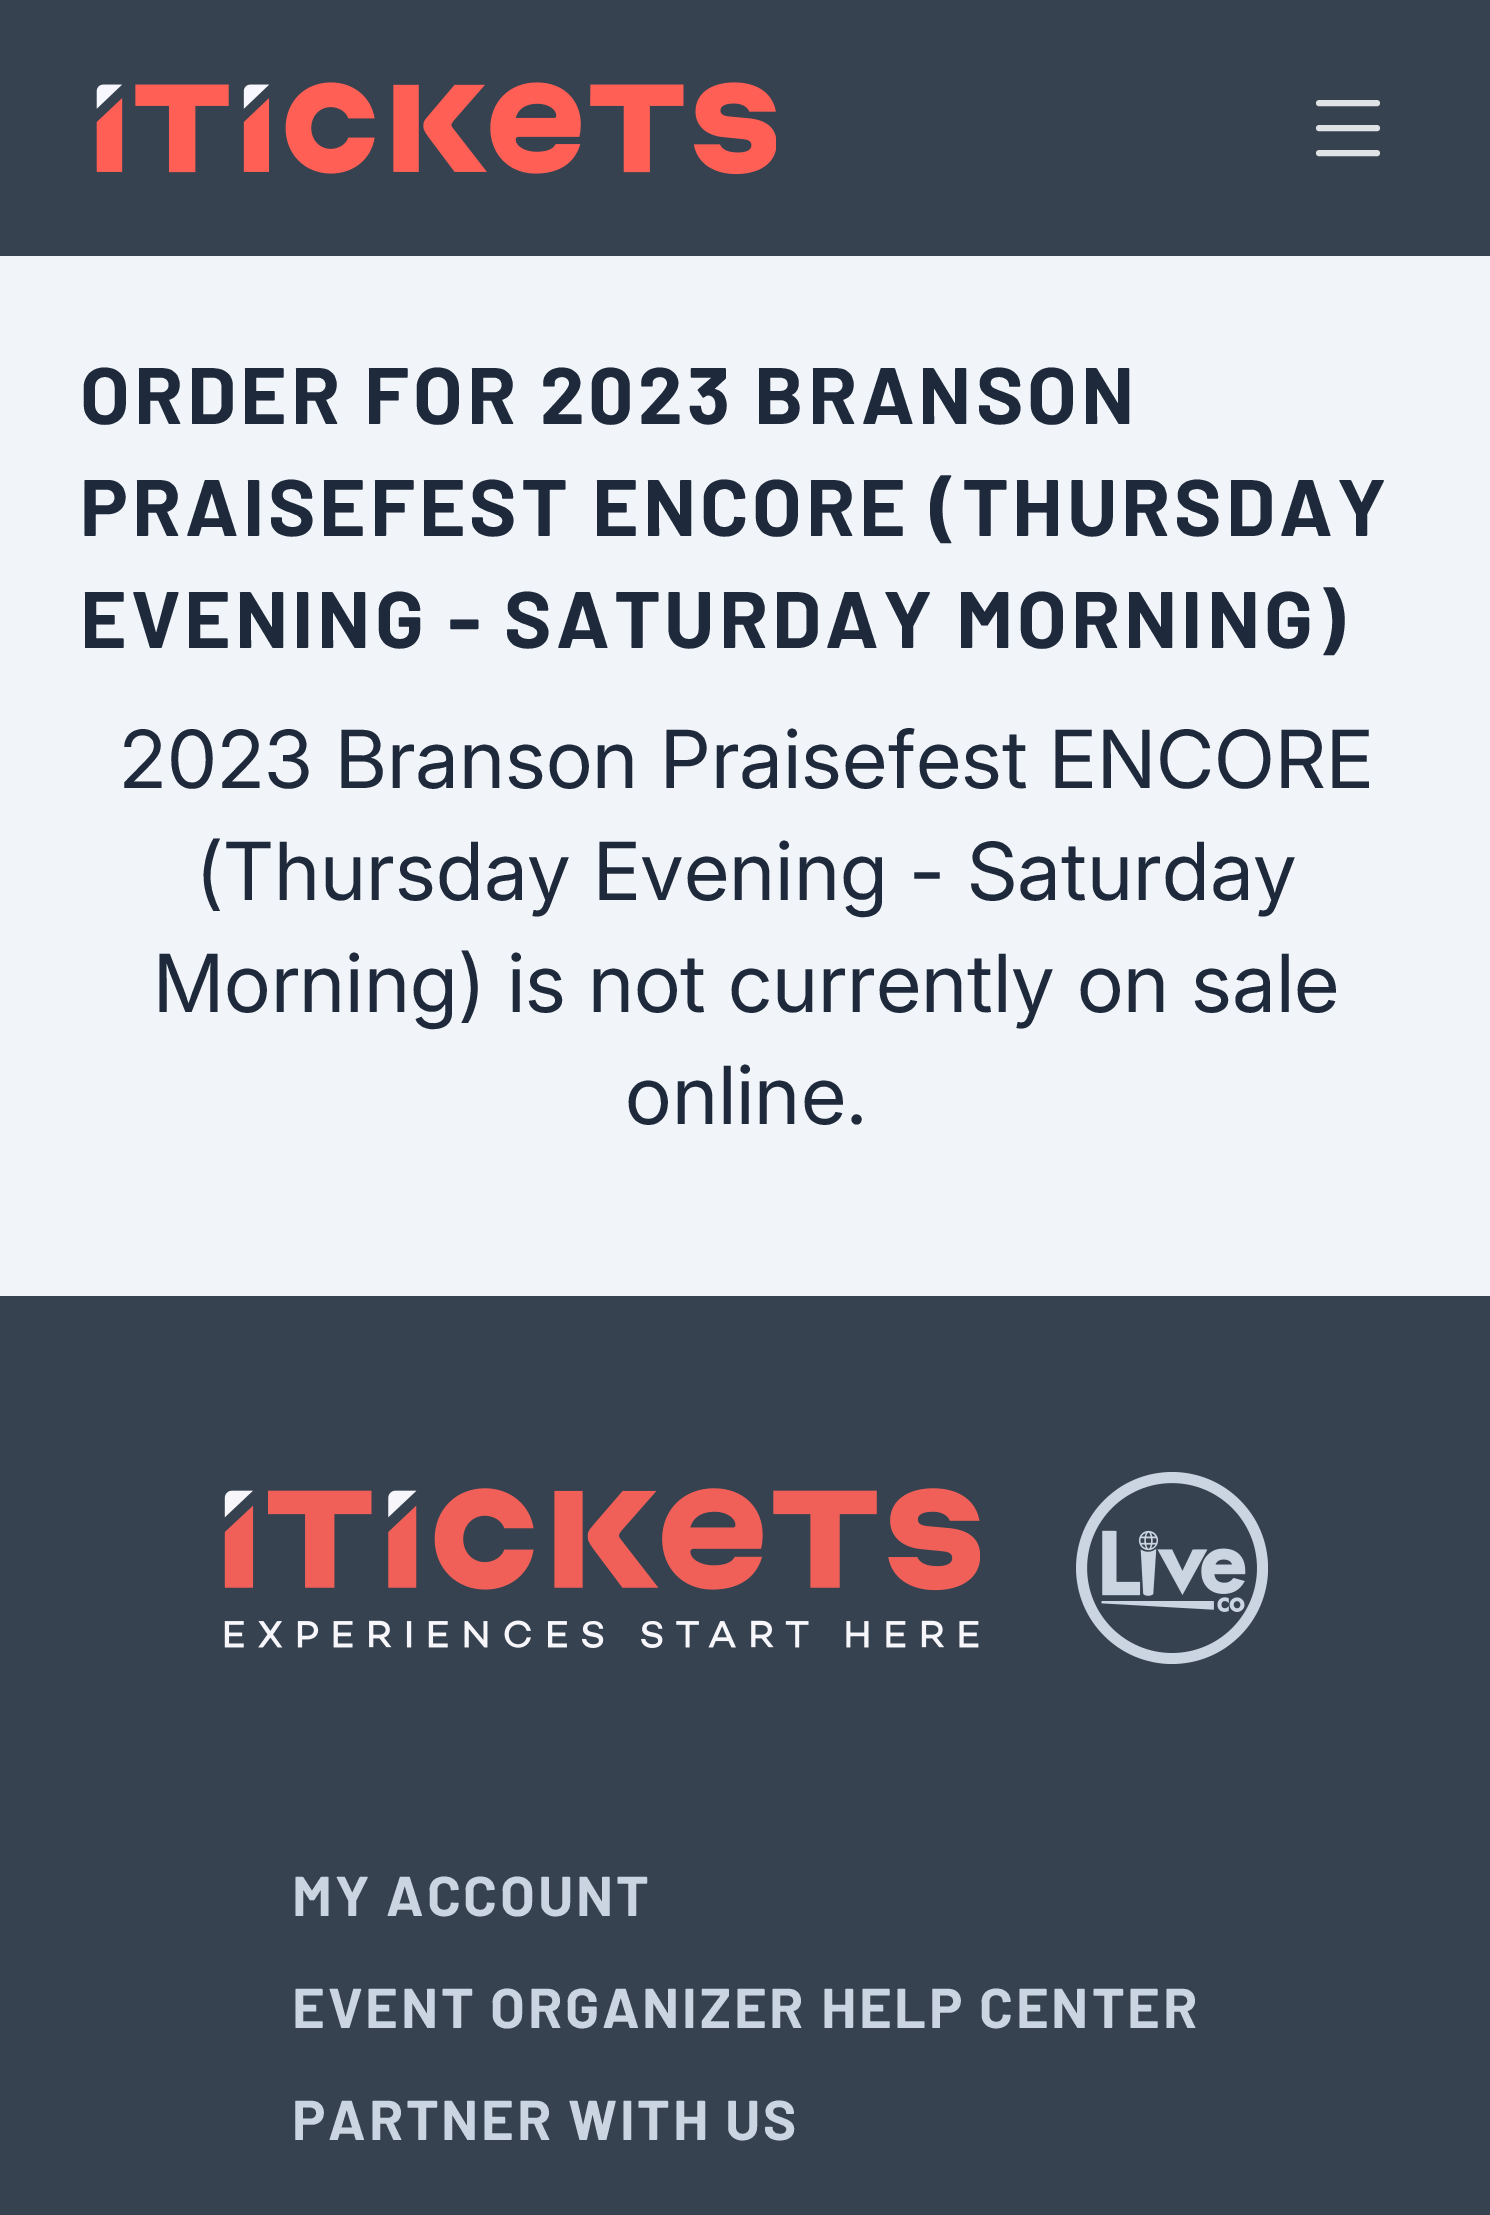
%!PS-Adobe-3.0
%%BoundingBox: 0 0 1490 2215
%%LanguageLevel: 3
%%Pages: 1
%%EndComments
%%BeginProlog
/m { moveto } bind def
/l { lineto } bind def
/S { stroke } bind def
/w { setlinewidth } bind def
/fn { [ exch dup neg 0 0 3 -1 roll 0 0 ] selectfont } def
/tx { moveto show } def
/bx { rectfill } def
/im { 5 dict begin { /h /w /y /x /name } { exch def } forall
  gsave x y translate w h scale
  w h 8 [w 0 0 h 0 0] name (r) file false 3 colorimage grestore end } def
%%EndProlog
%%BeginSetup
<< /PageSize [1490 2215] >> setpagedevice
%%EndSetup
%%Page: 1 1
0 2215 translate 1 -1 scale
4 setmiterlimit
0.212 0.259 0.31 setrgbcolor
0 0 1490 2215 bx
(image0.raw) 96 82 680 93 im
0.878 0.89 0.902 setrgbcolor
6 w
1 setlinecap
1 setlinejoin
1319 103 m 1377 103 l S
1319 153 m 1377 153 l S
1319 128 m 1377 128 l S
0.945 0.961 0.976 setrgbcolor
0 256 1490 1040 bx
/Barlow-Bold 80 fn
0.118 0.161 0.231 setrgbcolor
80 424 m 4 0 (ORDER FOR 2023 BRANSON) ashow
80 536 m 4 0 (PRAISEFEST ENCORE \(THURSDAY) ashow
80 648 m 4 0 (EVENING - SATURDAY MORNING\)) ashow
/Inter-Regular 80 fn
(2023 Branson Praisefest ENCORE) 119 788 tx
(\(Thursday Evening - Saturday) 196 900 tx
(Morning\) is not currently on sale) 153 1012 tx
(online.) 625 1124 tx
(image1.raw) 224 1488 756 160 im
(image2.raw) 1076 1472 192 192 im
/Barlow-Bold 56 fn
0.796 0.835 0.882 setrgbcolor
292 1916 m 2.8 0 (MY ACCOUNT) ashow
292 2028 m 2.8 0 (EVENT ORGANIZER HELP CENTER) ashow
292 2140 m 2.8 0 (PARTNER WITH US) ashow
showpage
%%EOF
